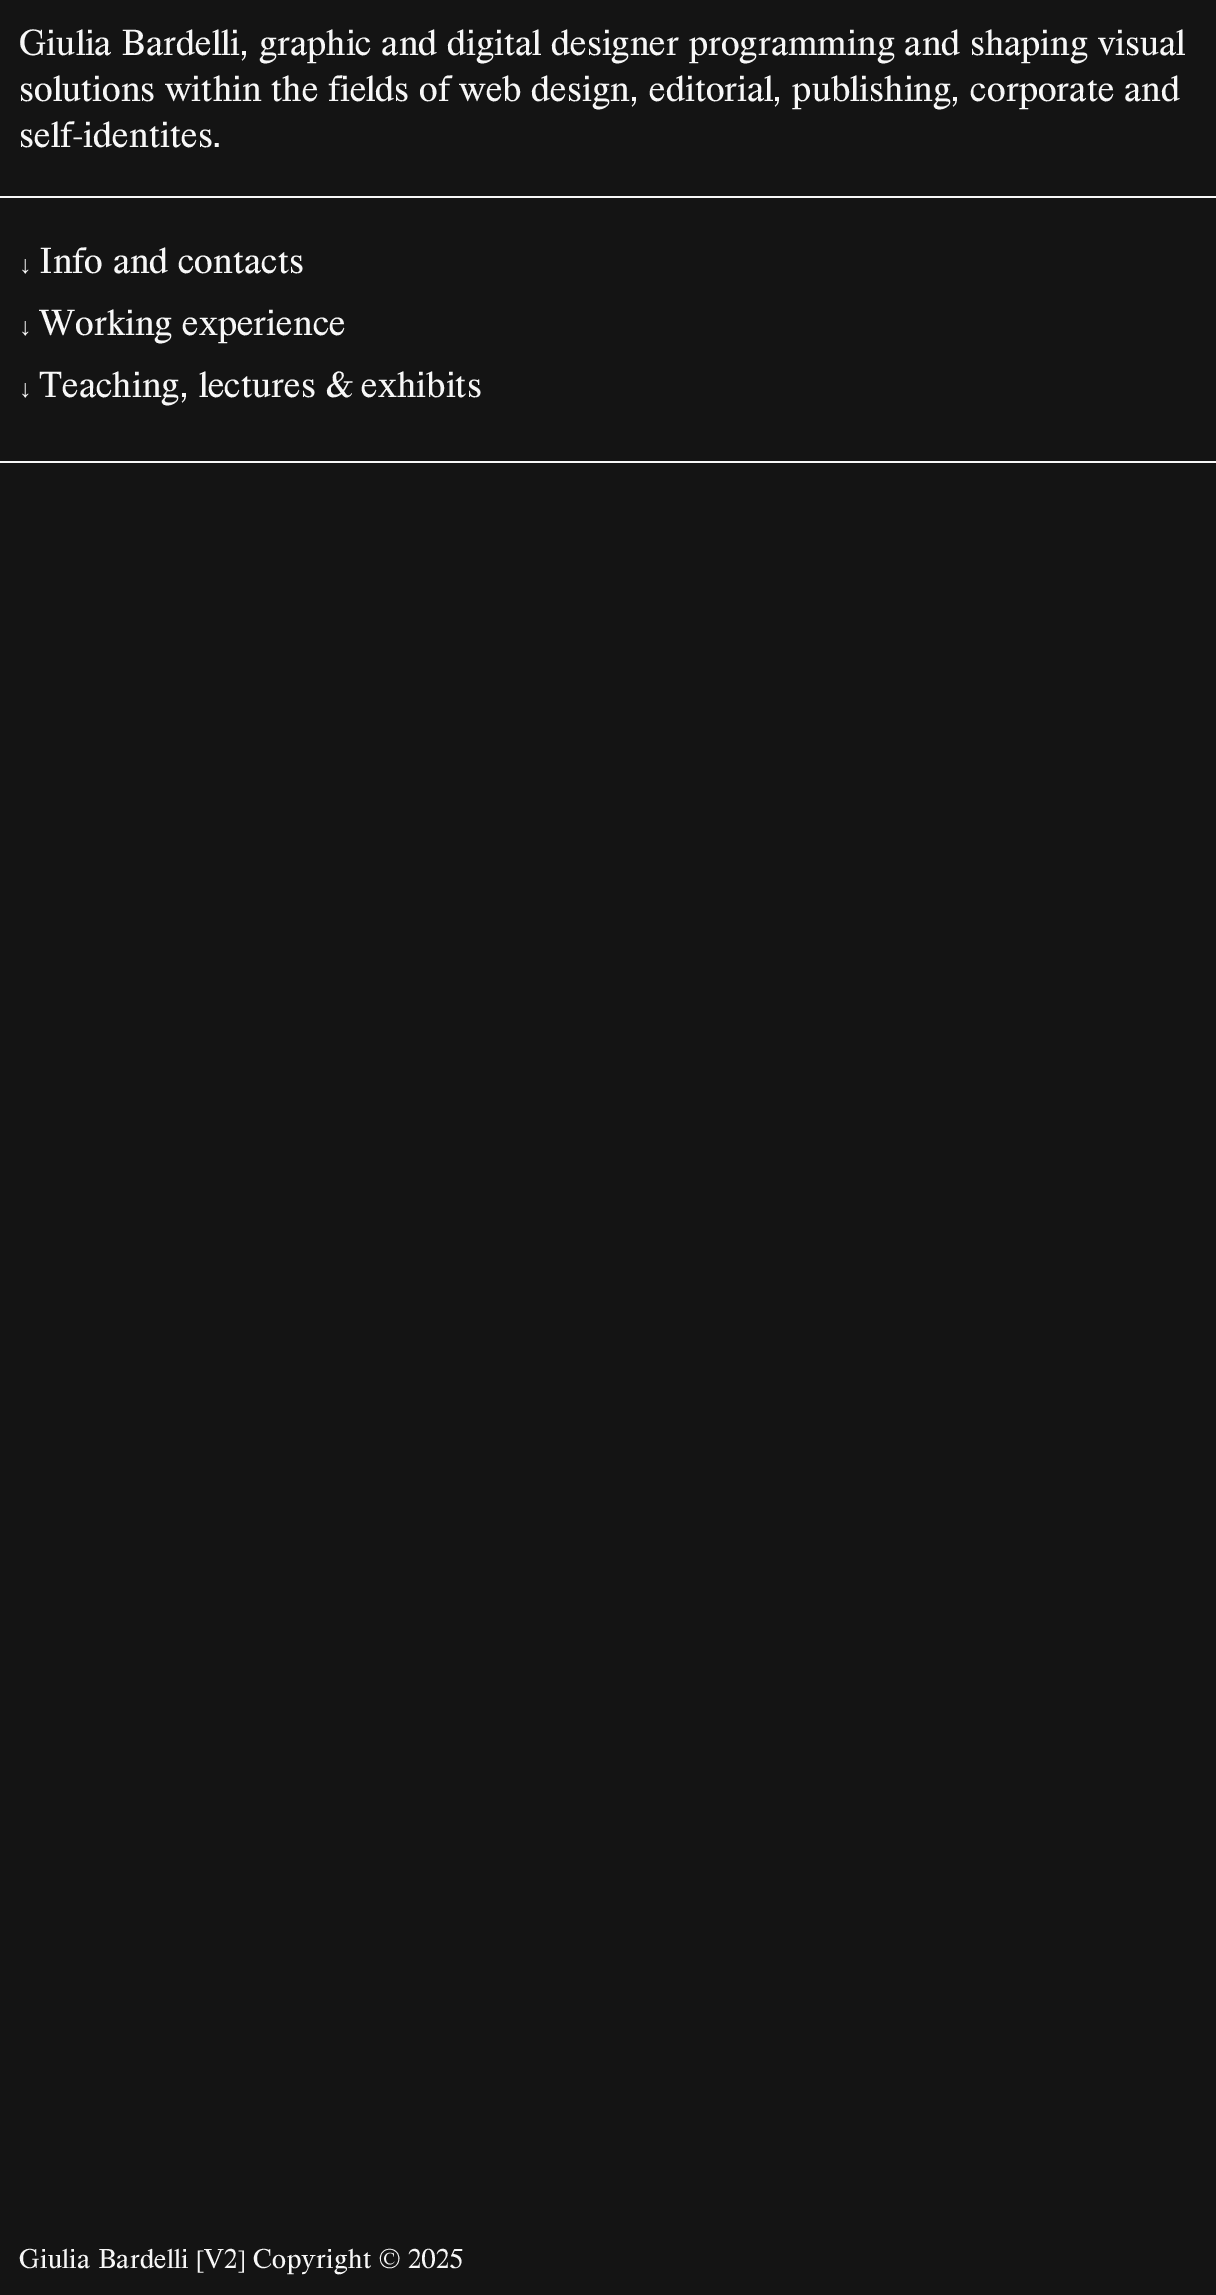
%!PS-Adobe-3.0
%%BoundingBox: 0 0 1216 2295
%%LanguageLevel: 3
%%Pages: 1
%%EndComments
%%BeginProlog
/m { moveto } bind def
/fn { [ exch dup neg 0 0 3 -1 roll 0 0 ] selectfont } def
/tx { moveto show } def
/bx { rectfill } def
%%EndProlog
%%BeginSetup
<< /PageSize [1216 2295] >> setpagedevice
%%EndSetup
%%Page: 1 1
0 2295 translate 1 -1 scale
4 setmiterlimit
0.078 setgray
0 0 1216 2295 bx
0.969 setgray
0 196 1216 2 bx
/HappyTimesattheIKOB-Regular 38.4 fn
(Giulia Bardelli, graphic and digital designer programming and shaping visual) 19 55 tx
(solutions within the fields of web design, editorial, publishing, corporate and) 19 101 tx
(self-identites.) 19 147 tx
0 461 1216 2 bx
/LiberationSans-Regular 25 fn
(↓) 19 273 tx
/HappyTimesattheIKOB-Regular 38.4 fn
(Info and contacts) 39 273 tx
/LiberationSans-Regular 25 fn
(↓) 19 335 tx
/HappyTimesattheIKOB-Regular 38.4 fn
(Working experience) 39 335 tx
/LiberationSans-Regular 25 fn
(↓) 19 397 tx
/HappyTimesattheIKOB-Regular 38.4 fn
(Teaching, lectures & exhibits) 39 397 tx
/HappyTimesattheIKOB-Regular 28.8 fn
19 2268 m 0.3 0 (Giulia Bardelli [V2] Copyright © 2025) ashow
showpage
%%EOF
